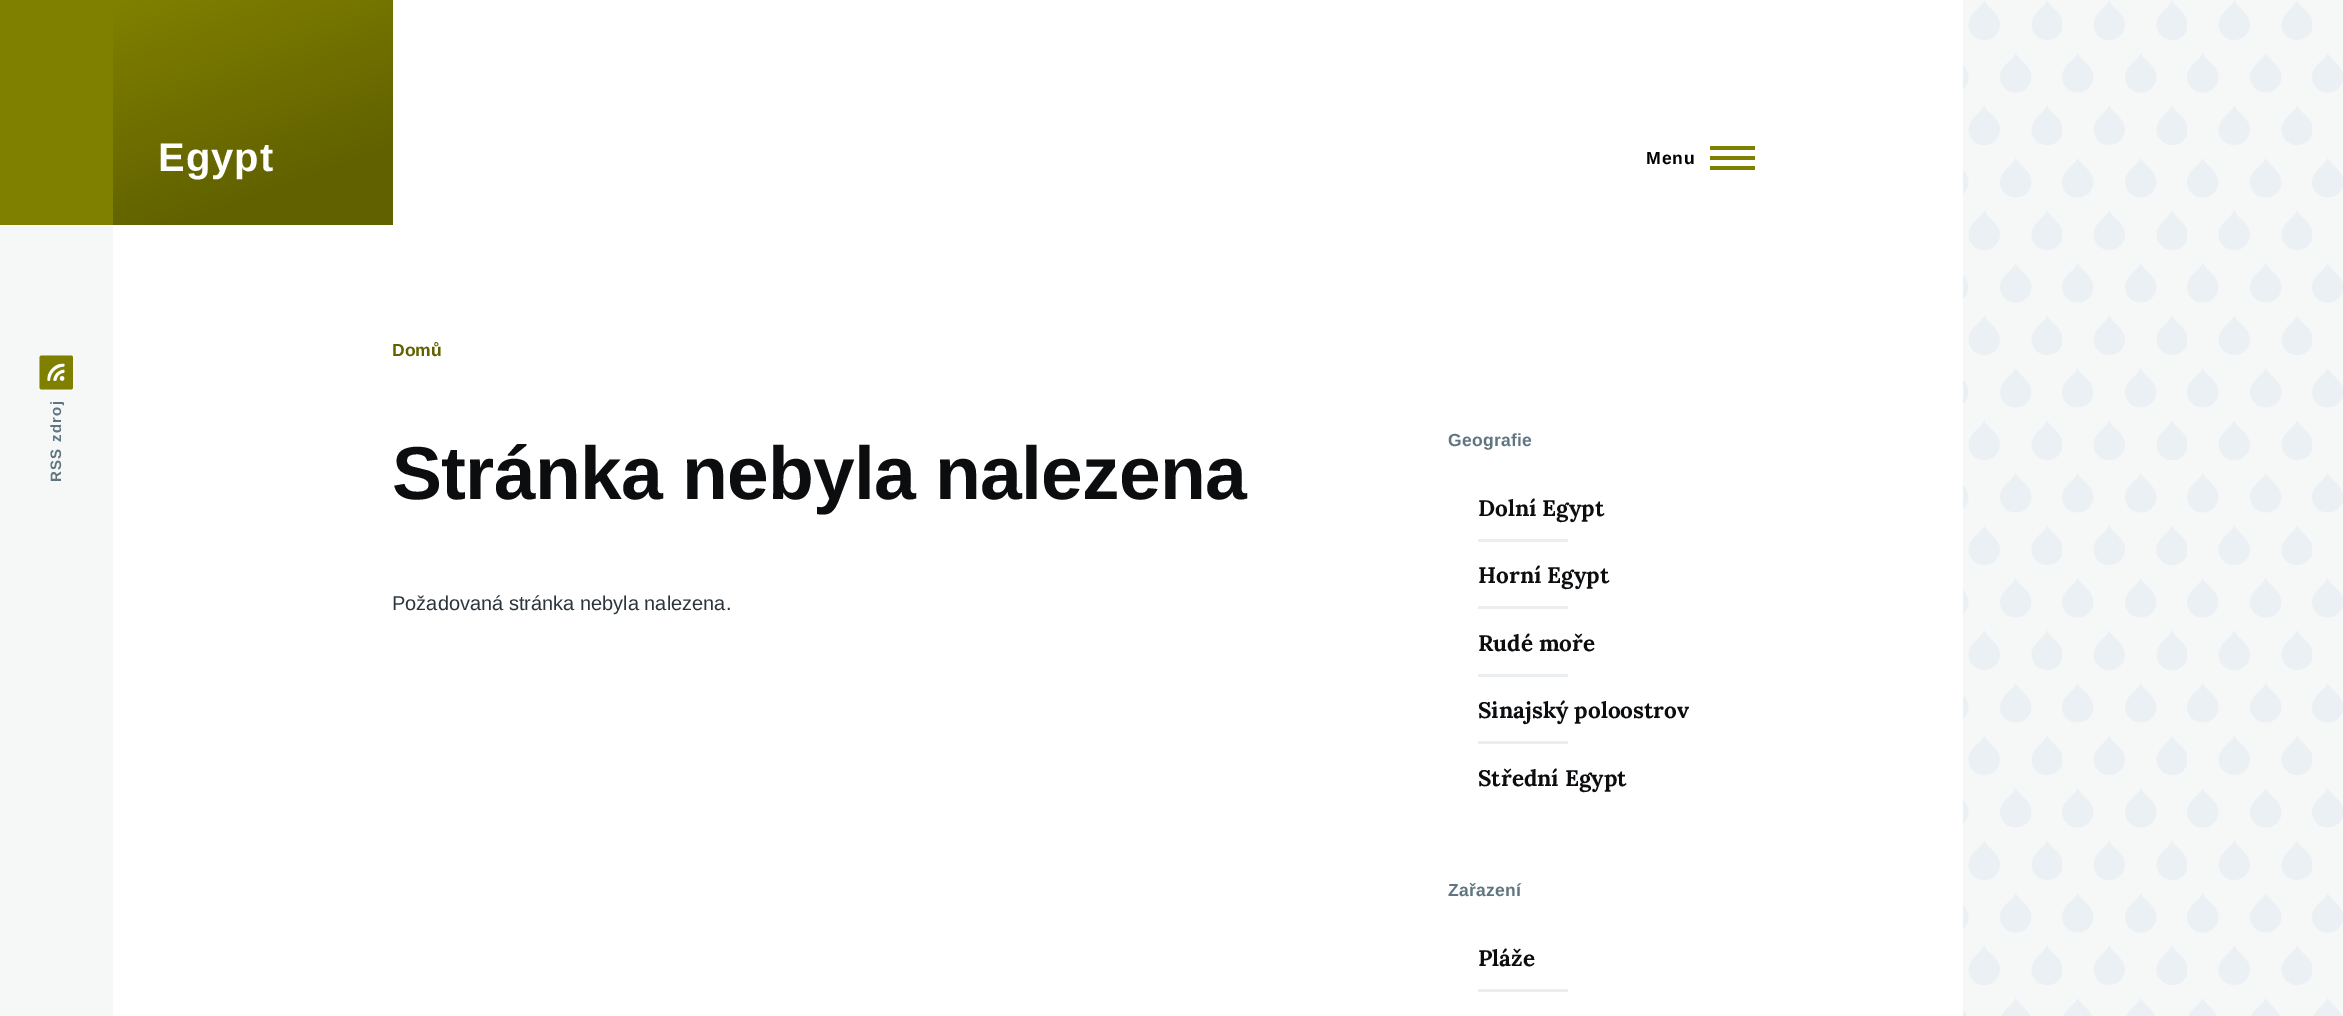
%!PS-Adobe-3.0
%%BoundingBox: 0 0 2343 1016
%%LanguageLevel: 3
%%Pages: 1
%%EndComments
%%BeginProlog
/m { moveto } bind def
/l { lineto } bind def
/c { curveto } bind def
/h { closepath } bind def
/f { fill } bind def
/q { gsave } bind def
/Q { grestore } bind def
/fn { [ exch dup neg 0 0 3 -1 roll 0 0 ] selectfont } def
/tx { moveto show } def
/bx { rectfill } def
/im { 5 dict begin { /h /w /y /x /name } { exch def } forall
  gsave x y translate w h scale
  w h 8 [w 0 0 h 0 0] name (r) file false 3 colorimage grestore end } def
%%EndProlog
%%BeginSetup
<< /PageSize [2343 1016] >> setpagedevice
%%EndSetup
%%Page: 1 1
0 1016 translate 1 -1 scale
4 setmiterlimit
0.965 0.973 0.973 setrgbcolor
0 0 2343 1016 bx
(image0.raw) 1963 0 380 1016 im
1 setgray
0 0 1963 1016 bx
0.502 0.502 0 setrgbcolor
0 0 113 225 bx
q 113 0 m 393 0 l 393 225 l 113 225 l h clip newpath
<< /ShadingType 2 /ColorSpace /DeviceRGB /Coords [200 -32 305 257] /Extend [true true] /Function << /FunctionType 3 /Domain [0 1] /Functions [<< /FunctionType 2 /Domain [0 1] /C0 [0.502 0.502 0] /C1 [0.38 0.38 0] /N 1 >> << /FunctionType 2 /Domain [0 1] /C0 [0.38 0.38 0] /C1 [0.38 0.38 0] /N 1 >>] /Bounds [0.79] /Encode [0 1 0 1] >> >> shfill Q
/LiberationSans-Bold 40 fn
1 setgray
158 171 m 1 0 (Egypt) ashow
/LiberationSans-Bold 17.5 fn
0 setgray
1646 164 m 1 0 (Menu) ashow
0.502 0.502 0 setrgbcolor
1710 156 45 4 bx
1710 146 45 4 bx
1710 166 45 4 bx
0.965 0.973 0.973 setrgbcolor
0 226 113 790 bx
0.502 0.502 0 setrgbcolor
39.5 387 m 39.5 358 l 39.5 356.5 40.5 355.5 42 355.5 c 70.5 355.5 l 72 355.5 73 356.5 73 358 c 73 387 l 73 388.5 72 389.5 70.5 389.5 c 42 389.5 l 40.5 389.5 39.5 388.5 39.5 387 c h f
(image1.raw) 47 363 18 18 im
/LiberationSans-Bold 15 fn
0.373 0.459 0.506 setrgbcolor
q 61 482 translate -90 rotate 0 0 m 1.25 0 (RSS zdroj) ashow Q
/LiberationSans-Bold 17.5 fn
0.38 0.38 0 setrgbcolor
(Domů) 392 356 tx
/LiberationSans-Bold 75 fn
0.043 0.051 0.059 setrgbcolor
392 499 m -0.75 0 (Stránka nebyla nalezena) ashow
/LiberationSans-Regular 20 fn
0.169 0.208 0.231 setrgbcolor
(Požadovaná stránka nebyla nalezena.) 392 610 tx
/LiberationSans-Bold 17.5 fn
0.373 0.459 0.506 setrgbcolor
1448 446 m 0.25 0 (Geografie) ashow
/Lora-Bold 22.5 fn
0.043 0.051 0.059 setrgbcolor
(Dolní Egypt) 1478 516 tx
0.918 0.933 0.941 setrgbcolor
1478 539 90 3 bx
0.043 0.051 0.059 setrgbcolor
(Horní Egypt) 1478 583 tx
0.918 0.933 0.941 setrgbcolor
1478 606 90 3 bx
0.043 0.051 0.059 setrgbcolor
(Rudé moře) 1478 651 tx
0.918 0.933 0.941 setrgbcolor
1478 674 90 3 bx
0.043 0.051 0.059 setrgbcolor
(Sinajský poloostrov) 1478 718 tx
0.918 0.933 0.941 setrgbcolor
1478 741 90 3 bx
0.043 0.051 0.059 setrgbcolor
(Střední Egypt) 1478 786 tx
/LiberationSans-Bold 17.5 fn
0.373 0.459 0.506 setrgbcolor
1448 896 m 0.25 0 (Zařazení) ashow
/Lora-Bold 22.5 fn
0.043 0.051 0.059 setrgbcolor
(Pláže) 1478 966 tx
0.918 0.933 0.941 setrgbcolor
1478 989 90 3 bx
showpage
%%EOF
